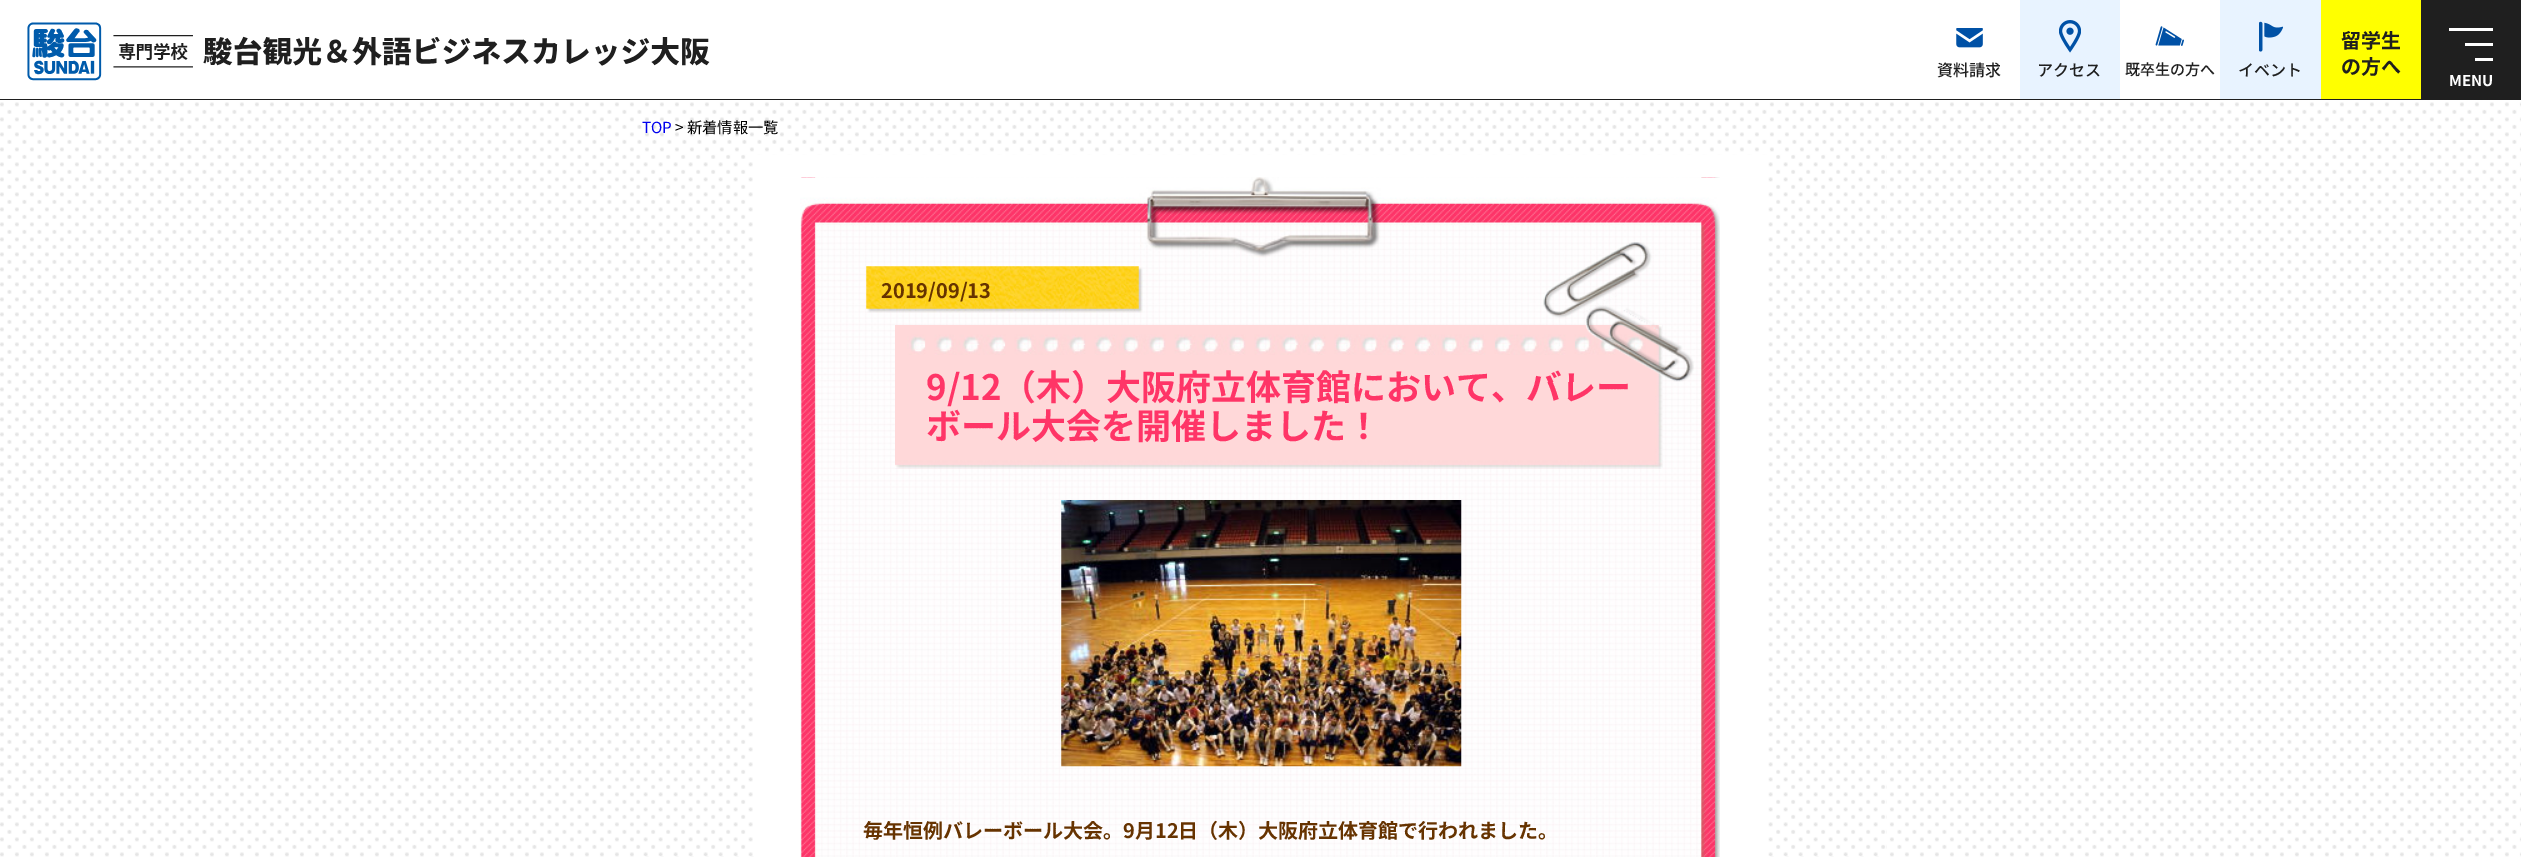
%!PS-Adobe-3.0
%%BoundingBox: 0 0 2521 857
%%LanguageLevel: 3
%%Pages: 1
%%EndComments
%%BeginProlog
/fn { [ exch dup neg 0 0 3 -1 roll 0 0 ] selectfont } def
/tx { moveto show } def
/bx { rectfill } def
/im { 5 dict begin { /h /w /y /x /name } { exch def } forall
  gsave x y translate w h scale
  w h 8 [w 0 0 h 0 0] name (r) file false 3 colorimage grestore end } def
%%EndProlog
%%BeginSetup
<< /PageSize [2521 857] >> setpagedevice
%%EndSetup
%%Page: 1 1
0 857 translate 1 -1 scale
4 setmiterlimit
1 setgray
0 0 2521 857 bx
(image0.raw) 0 100 2521 757 im
(image1.raw) 1956 28 27 20 im
/NotoSansJP-Medium 16 fn
0.122 setgray
(資料請求) 1937 76 tx
0.91 0.953 1 setrgbcolor
2020 0 100 99 bx
(image2.raw) 2059 20 22 33 im
0.122 setgray
(アクセス) 2037 76 tx
(image3.raw) 2155 26 29 20 im
/NotoSansJP-Medium 15 fn
(既卒生の方へ) 2125 75 tx
0.91 0.953 1 setrgbcolor
2220 0 101 99 bx
(image4.raw) 2259 21 24 31 im
/NotoSansJP-Medium 16 fn
0.122 setgray
(イベント) 2238 76 tx
1 1 0 setrgbcolor
2321 0 100 99 bx
/NotoSansJP-Bold 20 fn
0.122 setgray
(留学生) 2341 48 tx
(の方へ) 2341 74 tx
2421 0 100 100 bx
1 setgray
2449 28 44 3 bx
2465 43 28 3 bx
2475 58 18 3 bx
/NotoSansJP-Bold 15 fn
(MENU) 2449 86 tx
0.122 setgray
0 99 2421 1 bx
(image5.raw) 27 22 683 59 im
/NotoSansJP-Regular 15.25 fn
0 0 0.933 setrgbcolor
(TOP) 642 133 tx
0 setgray
(> 新着情報一覧) 675 133 tx
(image6.raw) 636 155 1250 701 im
1 setgray
756 155 1010 702 bx
(image7.raw) 800 177 920 680 im
(image8.raw) 800 177 920 126 im
(image9.raw) 866 266 277 47 im
/NotoSansJP-Bold 20 fn
0.4 0.2 0 setrgbcolor
(2019/09/13) 881 298 tx
(image11.raw) 895 325 768 144 im
(image12.raw) 907 325 755 30 im
/NotoSansJP-Bold 35 fn
1 0.208 0.404 setrgbcolor
(9/12（木）大阪府立体育館において、バレー) 926 400 tx
(image10.raw) 1543 242 151 140 im
(image13.raw) 895 460 768 9 im
(ボール大会を開催しました！) 926 439 tx
(image14.raw) 1061 500 401 267 im
/NotoSansJP-Bold 20 fn
0.4 0.2 0 setrgbcolor
(毎年恒例バレーボール大会。9月12日（木）大阪府立体育館で行われました。) 863 838 tx
showpage
%%EOF
